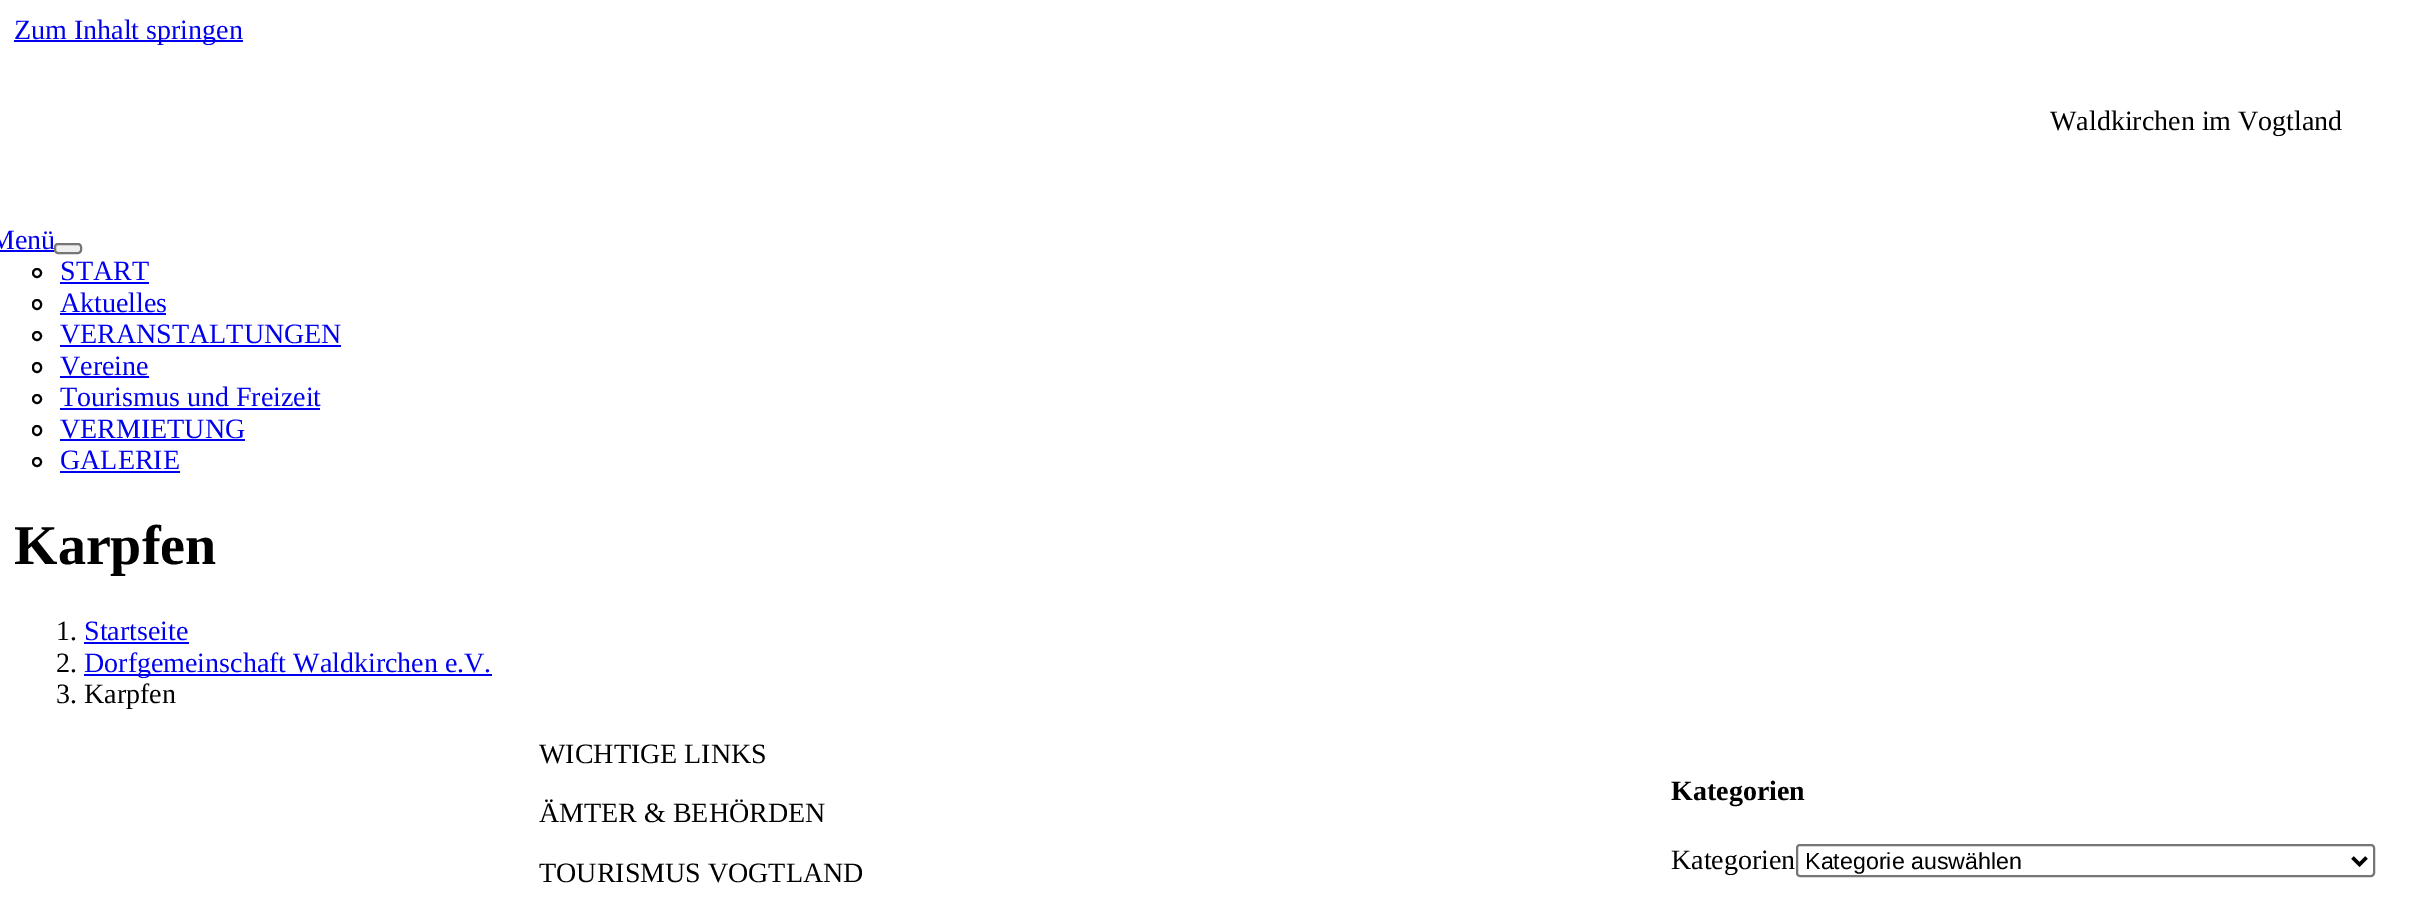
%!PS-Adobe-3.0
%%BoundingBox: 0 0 2412 916
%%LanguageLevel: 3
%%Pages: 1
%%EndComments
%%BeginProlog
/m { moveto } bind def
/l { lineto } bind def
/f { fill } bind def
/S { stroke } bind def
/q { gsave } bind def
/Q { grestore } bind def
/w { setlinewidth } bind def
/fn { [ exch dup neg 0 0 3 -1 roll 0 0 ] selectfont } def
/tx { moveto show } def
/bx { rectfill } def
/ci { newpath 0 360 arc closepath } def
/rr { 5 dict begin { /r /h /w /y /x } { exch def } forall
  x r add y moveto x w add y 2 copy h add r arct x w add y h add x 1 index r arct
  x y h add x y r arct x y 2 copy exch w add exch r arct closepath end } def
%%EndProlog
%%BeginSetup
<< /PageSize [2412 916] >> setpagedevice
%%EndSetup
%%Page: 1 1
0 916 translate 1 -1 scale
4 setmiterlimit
1 setgray
0 0 2412 916 bx
0 0 0.933 setrgbcolor
14 40 229 2 bx
/LiberationSerif-Regular 28 fn
(Zum Inhalt springen) 14 39 tx
0 setgray
(Waldkirchen im Vogtland) 2050 130 tx
0 0 0.933 setrgbcolor
(Menü) -10 249 tx
0 250 54 2 bx
0.937 setgray
55 244 26 9 3 rr q f Q
0.463 setgray
2 w
S
0 setgray
37 273 4 ci S
0 0 0.933 setrgbcolor
(START) 60 280 tx
60 282 89 2 bx
0 setgray
33 300 8 9 4 rr S
0 0 0.933 setrgbcolor
(Aktuelles) 60 312 tx
60 313 106 2 bx
0 setgray
37 336 4 ci S
0 0 0.933 setrgbcolor
(VERANSTALTUNGEN) 60 343 tx
60 345 281 2 bx
0 setgray
33 363 8 9 4 rr S
0 0 0.933 setrgbcolor
(Vereine) 60 375 tx
60 376 89 2 bx
0 setgray
37 399 4 ci S
0 0 0.933 setrgbcolor
(Tourismus und Freizeit) 60 406 tx
60 408 260 2 bx
0 setgray
33 426 8 9 4 rr S
0 0 0.933 setrgbcolor
(VERMIETUNG) 60 438 tx
60 439 185 2 bx
0 setgray
37 462 4 ci S
0 0 0.933 setrgbcolor
(GALERIE) 60 469 tx
60 471 120 2 bx
/LiberationSerif-Bold 56 fn
0 setgray
(Karpfen) 14 564 tx
/LiberationSerif-Regular 28 fn
(1.) 56 640 tx
0 0 0.933 setrgbcolor
(Startseite) 84 640 tx
84 642 105 2 bx
0 setgray
(2.) 56 672 tx
0 0 0.933 setrgbcolor
84 674 408 2 bx
(Dorfgemeinschaft Waldkirchen e.V.) 84 672 tx
0 setgray
(3. Karpfen) 56 703 tx
(WICHTIGE LINKS) 539 763 tx
(ÄMTER & BEHÖRDEN) 539 822 tx
(TOURISMUS VOGTLAND) 539 882 tx
/LiberationSerif-Bold 28 fn
(Kategorien) 1671 800 tx
/LiberationSerif-Regular 28 fn
(Kategorien) 1671 869 tx
0.463 setgray
1797 845 577 31 3 rr S
0 setgray
3.5 w
2352.5 857.5 m 2359.5 864.5 l 2366.5 857.5 l S
/LiberationSans-Regular 23.25 fn
(Kategorie auswählen) 1805 869 tx
showpage
%%EOF
